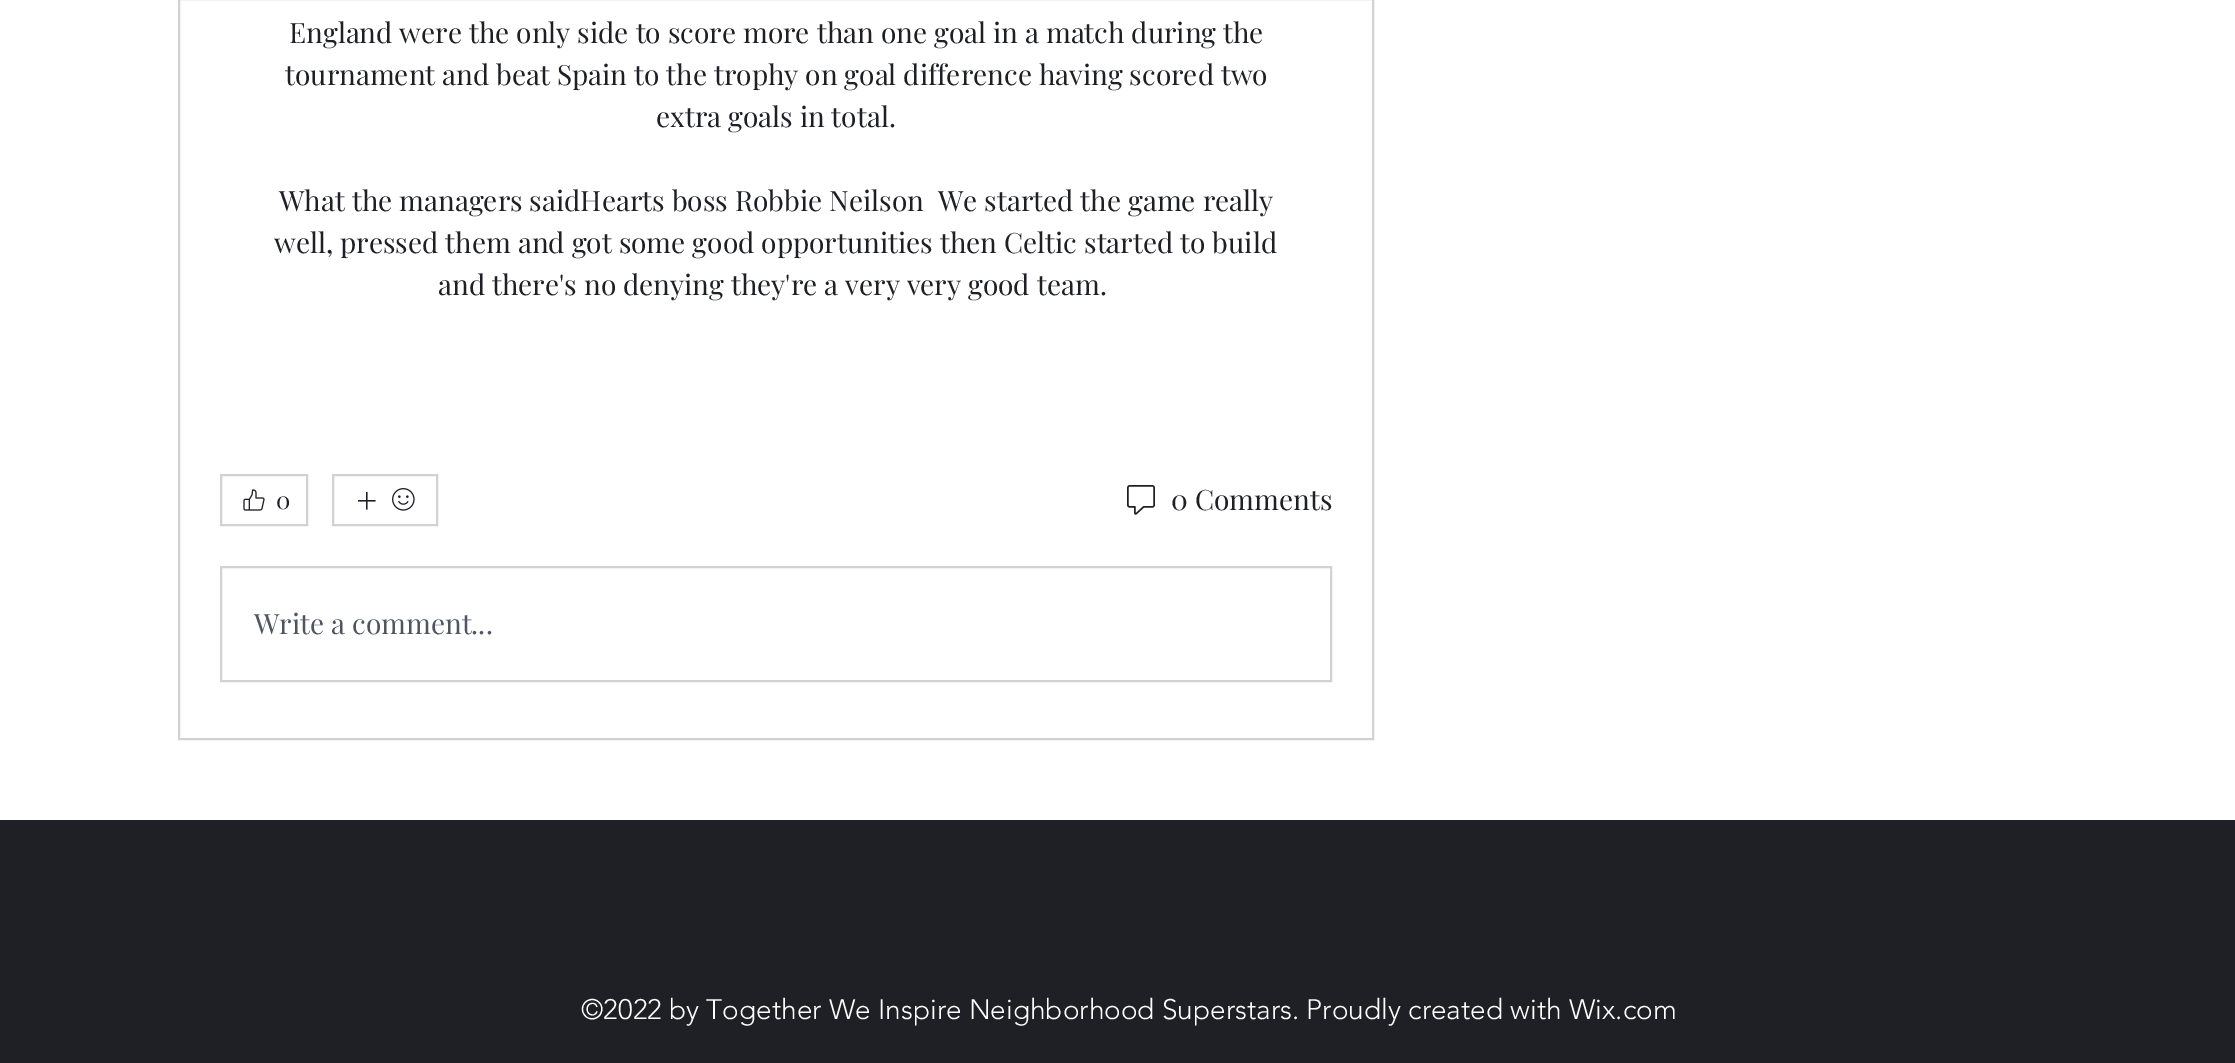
%!PS-Adobe-3.0
%%BoundingBox: 0 0 2235 1063
%%LanguageLevel: 3
%%Pages: 1
%%EndComments
%%BeginProlog
/w { setlinewidth } bind def
/fn { [ exch dup neg 0 0 3 -1 roll 0 0 ] selectfont } def
/tx { moveto show } def
/bx { rectfill } def
/im { 5 dict begin { /h /w /y /x /name } { exch def } forall
  gsave x y translate w h scale
  w h 8 [w 0 0 h 0 0] name (r) file false 3 colorimage grestore end } def
%%EndProlog
%%BeginSetup
<< /PageSize [2235 1063] >> setpagedevice
%%EndSetup
%%Page: 1 1
0 1063 translate 1 -1 scale
4 setmiterlimit
1 setgray
0 0 2235 1063 bx
0.824 0.824 0.827 setrgbcolor
2 w
179 -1 1194 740 rectstroke
/PlayfairDisplay-Regular 28 fn
0.118 0.125 0.145 setrgbcolor
(England were the only side to score more than one goal in a match during the) 289 43 tx
(tournament and beat Spain to the trophy on goal difference having scored two) 285 85 tx
(extra goals in total.) 656 127 tx
(What the managers saidHearts boss Robbie Neilson  We started the game really) 279 211 tx
(well, pressed them and got some good opportunities then Celtic started to build) 274 253 tx
(and there's no denying they're a very very good team.) 438 295 tx
0.824 0.824 0.827 setrgbcolor
221 475 86 50 rectstroke
(image0.raw) 243 489 22 22 im
/PlayfairDisplay-Regular 24 fn
0.118 0.125 0.145 setrgbcolor
(0) 276 509 tx
0.824 0.824 0.827 setrgbcolor
333 475 104 50 rectstroke
(image1.raw) 358 492 18 18 im
(image2.raw) 392 488 23 23 im
(image3.raw) 1127 485 28 30 im
/PlayfairDisplay-Regular 28 fn
0.118 0.125 0.145 setrgbcolor
(0 Comments) 1171 510 tx
0.824 0.824 0.827 setrgbcolor
221 567 1110 114 rectstroke
0.314 0.333 0.384 setrgbcolor
(Write a comment...) 254 634 tx
0.118 0.125 0.145 setrgbcolor
0 820 2235 243 bx
/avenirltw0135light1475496-Light 28 fn
1 setgray
(©2022 by Together We Inspire Neighborhood Superstars. Proudly created with Wix.com) 581 1019 tx
showpage
%%EOF
